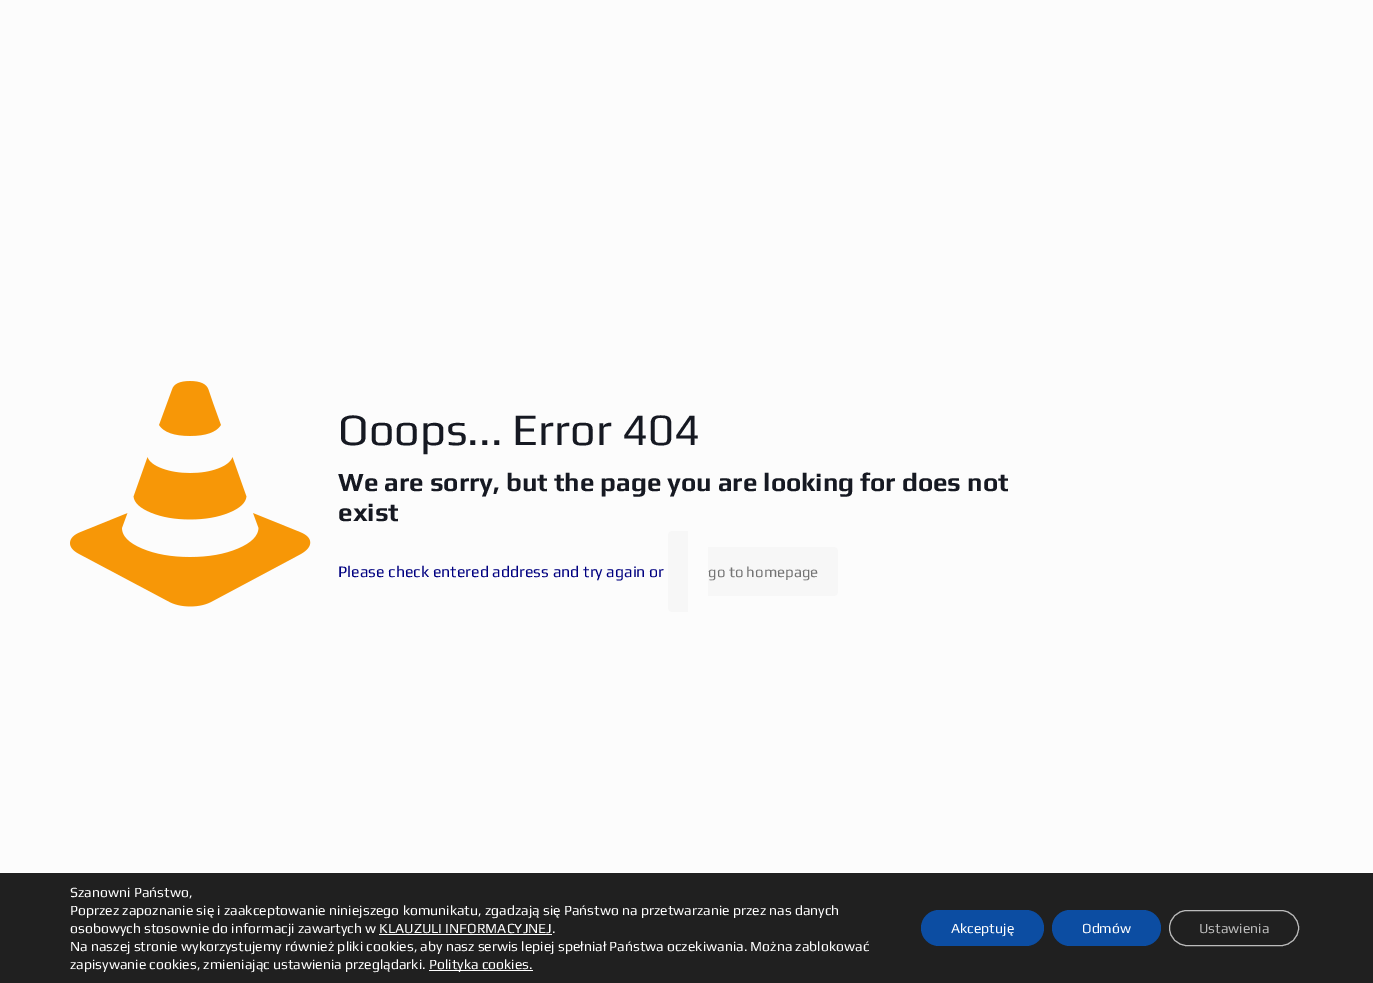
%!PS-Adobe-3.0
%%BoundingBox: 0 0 1373 983
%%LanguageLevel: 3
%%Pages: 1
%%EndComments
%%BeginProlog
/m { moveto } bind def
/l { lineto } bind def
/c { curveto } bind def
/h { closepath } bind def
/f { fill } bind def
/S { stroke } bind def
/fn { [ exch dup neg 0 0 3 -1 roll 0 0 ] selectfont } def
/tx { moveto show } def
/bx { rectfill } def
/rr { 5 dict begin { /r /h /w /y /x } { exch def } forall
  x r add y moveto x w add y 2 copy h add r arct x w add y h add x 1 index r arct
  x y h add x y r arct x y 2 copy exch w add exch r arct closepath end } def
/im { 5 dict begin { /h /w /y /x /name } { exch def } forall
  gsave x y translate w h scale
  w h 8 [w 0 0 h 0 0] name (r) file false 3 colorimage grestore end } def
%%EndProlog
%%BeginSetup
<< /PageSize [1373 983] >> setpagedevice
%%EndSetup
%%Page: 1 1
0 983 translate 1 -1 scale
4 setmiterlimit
0.988 setgray
0 0 1373 983 bx
(image0.raw) 70 381 241 226 im
/Play-Regular 45 fn
0.086 0.098 0.133 setrgbcolor
(Ooops... Error 404) 338 445 tx
/Play-Bold 26 fn
(We are sorry, but the page you are looking for does not) 338 491 tx
(exist) 338 521 tx
/Play-Regular 16 fn
0 0 0.502 setrgbcolor
(Please check entered address and try again or) 338 577 tx
0.969 setgray
708 547 m 833 547 l 836 547 838 549 838 552 c 838 591 l 838 594 836 596 833 596 c 708 596 l h f
/Play-Regular 15 fn
0.455 setgray
(go to homepage) 708 577 tx
0.969 setgray
673 531 m 688 531 l 688 612 l 673 612 l 670 612 668 610 668 607 c 668 536 l 668 533 670 531 673 531 c h f
0.125 setgray
0 873 1373 110 bx
1 setgray
0 872 1373 1 bx
/Play-Regular 14 fn
(Szanowni Państwo,) 70 897 tx
(Poprzez zapoznanie się i zaakceptowanie niniejszego komunikatu, zgadzają się Państwo na przetwarzanie przez nas danych) 70 915 tx
(osobowych stosownie do informacji zawartych w KLAUZULI INFORMACYJNEJ.) 70 933 tx
379 934 173 1 bx
(Na naszej stronie wykorzystujemy również pliki cookies, aby nasz serwis lepiej spełniał Państwa oczekiwania. Można zablokować) 70 951 tx
(zapisywanie cookies, zmieniając ustawienia przeglądarki.) 70 969 tx
429 970 104 1 bx
(Polityka cookies.) 429 969 tx
0.047 0.302 0.635 setrgbcolor
921 910 123 36 18 rr f
1 setgray
(Akceptuję) 951 933 tx
0.047 0.302 0.635 setrgbcolor
1052 910 109 36 18 rr f
1 setgray
(Odmów) 1082 933 tx
0.737 setgray
1169.5 910.5 129 35 17.5 rr S
(Ustawienia) 1199 933 tx
showpage
%%EOF
